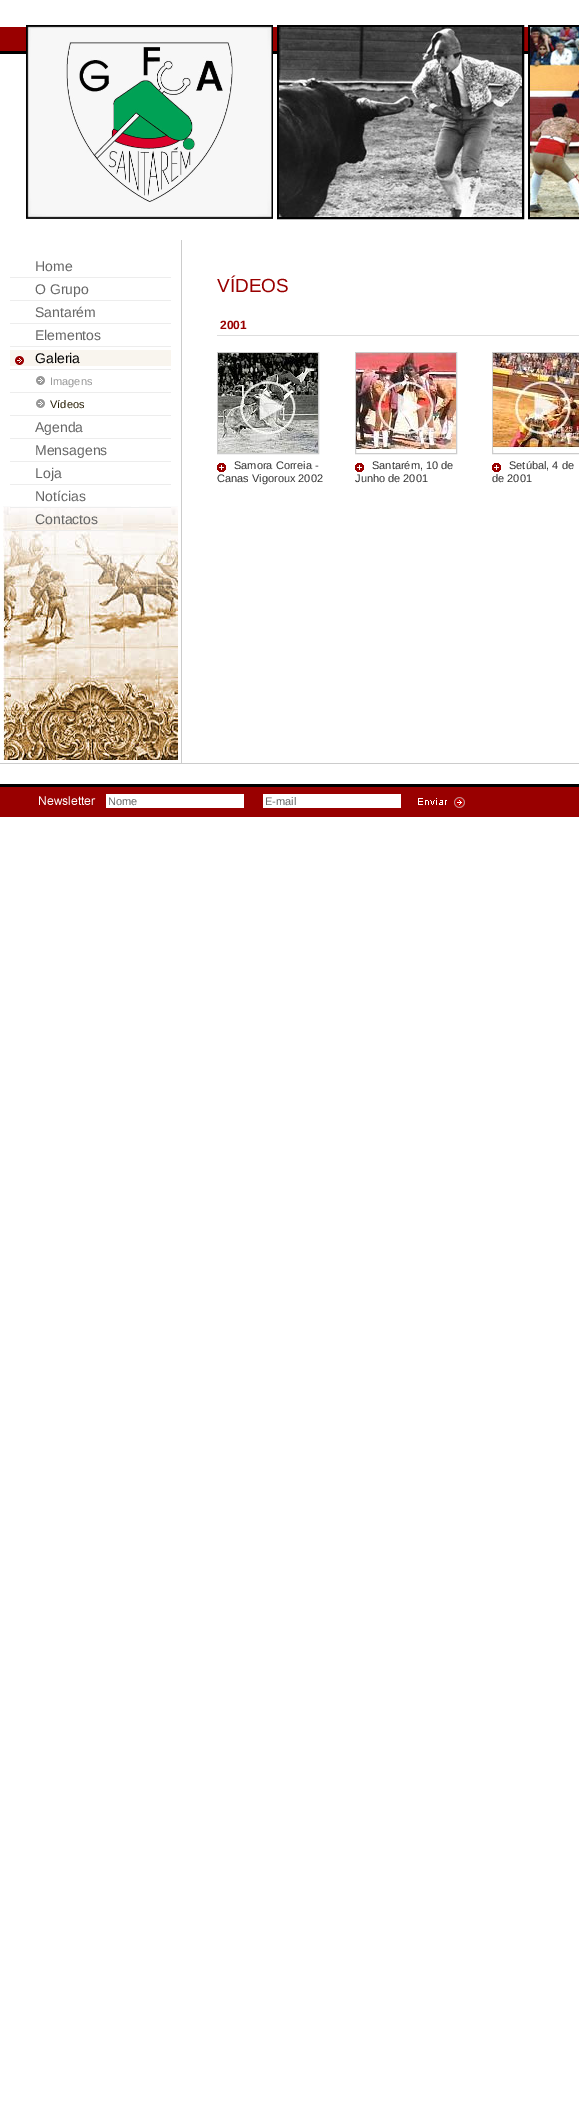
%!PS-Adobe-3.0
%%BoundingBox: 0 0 579 2124
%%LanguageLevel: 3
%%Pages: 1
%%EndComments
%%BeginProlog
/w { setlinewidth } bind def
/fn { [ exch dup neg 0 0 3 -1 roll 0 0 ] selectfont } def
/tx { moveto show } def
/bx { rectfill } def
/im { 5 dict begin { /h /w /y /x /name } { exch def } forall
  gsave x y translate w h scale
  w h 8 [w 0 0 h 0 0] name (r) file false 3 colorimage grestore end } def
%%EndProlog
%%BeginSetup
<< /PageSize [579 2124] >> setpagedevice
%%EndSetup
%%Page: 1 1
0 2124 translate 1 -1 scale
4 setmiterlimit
1 setgray
0 0 579 2124 bx
(image0.raw) 0 27 528 27 im
(image1.raw) 26 25 247 194 im
0 setgray
2 w
278 26 245 192 rectstroke
(image2.raw) 279 27 243 190 im
529 26 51 192 rectstroke
(image3.raw) 530 27 49 190 im
0.8 setgray
0 763 579 1 bx
(image4.raw) 3 506 175 254 im
0.929 setgray
10 277 161 1 bx
/LiberationSans-Regular 14 fn
0.4 setgray
(Home) 35 271 tx
0.929 setgray
10 300 161 1 bx
0.4 setgray
(O Grupo) 35 294 tx
0.929 setgray
10 323 161 1 bx
0.4 setgray
(Santarém) 35 317 tx
0.929 setgray
10 346 161 1 bx
0.4 setgray
(Elementos) 35 340 tx
0.929 setgray
10 369 161 1 bx
0.976 0.961 0.933 setrgbcolor
10 350 161 16 bx
(image5.raw) 15 356 9 9 im
0 setgray
(Galeria) 35 363 tx
0.929 setgray
10 392 161 1 bx
(image6.raw) 36 376 9 9 im
/LiberationSans-Regular 11 fn
0.6 setgray
(Imagens) 50 385 tx
0.929 setgray
10 415 161 1 bx
(image6.raw) 36 399 9 9 im
0.153 0.118 0.024 setrgbcolor
(Vídeos) 50 408 tx
0.929 setgray
10 438 161 1 bx
/LiberationSans-Regular 14 fn
0.4 setgray
(Agenda) 35 432 tx
0.929 setgray
10 461 161 1 bx
0.4 setgray
(Mensagens) 35 455 tx
0.929 setgray
10 484 161 1 bx
0.4 setgray
(Loja) 35 478 tx
0.929 setgray
10 507 161 1 bx
0.4 setgray
(Notícias) 35 501 tx
0.929 setgray
10 530 161 1 bx
0.4 setgray
(Contactos) 35 524 tx
0.8 setgray
181 240 1 523 bx
/LiberationSans-Regular 19 fn
0.6 0 0 setrgbcolor
(VÍDEOS) 217 292 tx
0.871 setgray
217 335 362 1 bx
/LiberationSans-Bold 12 fn
0.6 0 0 setrgbcolor
(2001) 220 329 tx
0.8 setgray
1 w
217.5 352.5 101 101 rectstroke
(image7.raw) 218 353 100 100 im
(image8.raw) 217 463 9 9 im
/LiberationSans-Regular 11 fn
0.2 setgray
(Samora Correia -) 234 469 tx
(Canas Vigoroux 2002) 217 482 tx
0.8 setgray
355.5 352.5 101 101 rectstroke
(image9.raw) 356 353 100 97 im
(image8.raw) 355 463 9 9 im
0.2 setgray
(Santarém, 10 de) 372 469 tx
(Junho de 2001) 355 482 tx
0.8 setgray
492.5 352.5 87 101 rectstroke
(image10.raw) 493 353 86 97 im
(image8.raw) 492 463 9 9 im
0.2 setgray
(Setúbal, 4 de) 509 469 tx
(de 2001) 492 482 tx
(image11.raw) 0 784 579 33 im
(image12.raw) 39 796 57 9 im
1 setgray
106 794 138 14 bx
0.4 setgray
(Nome) 108 805 tx
1 setgray
263 794 138 14 bx
0.4 setgray
(E-mail) 265 805 tx
(image13.raw) 418 797 47 11 im
showpage
%%EOF
